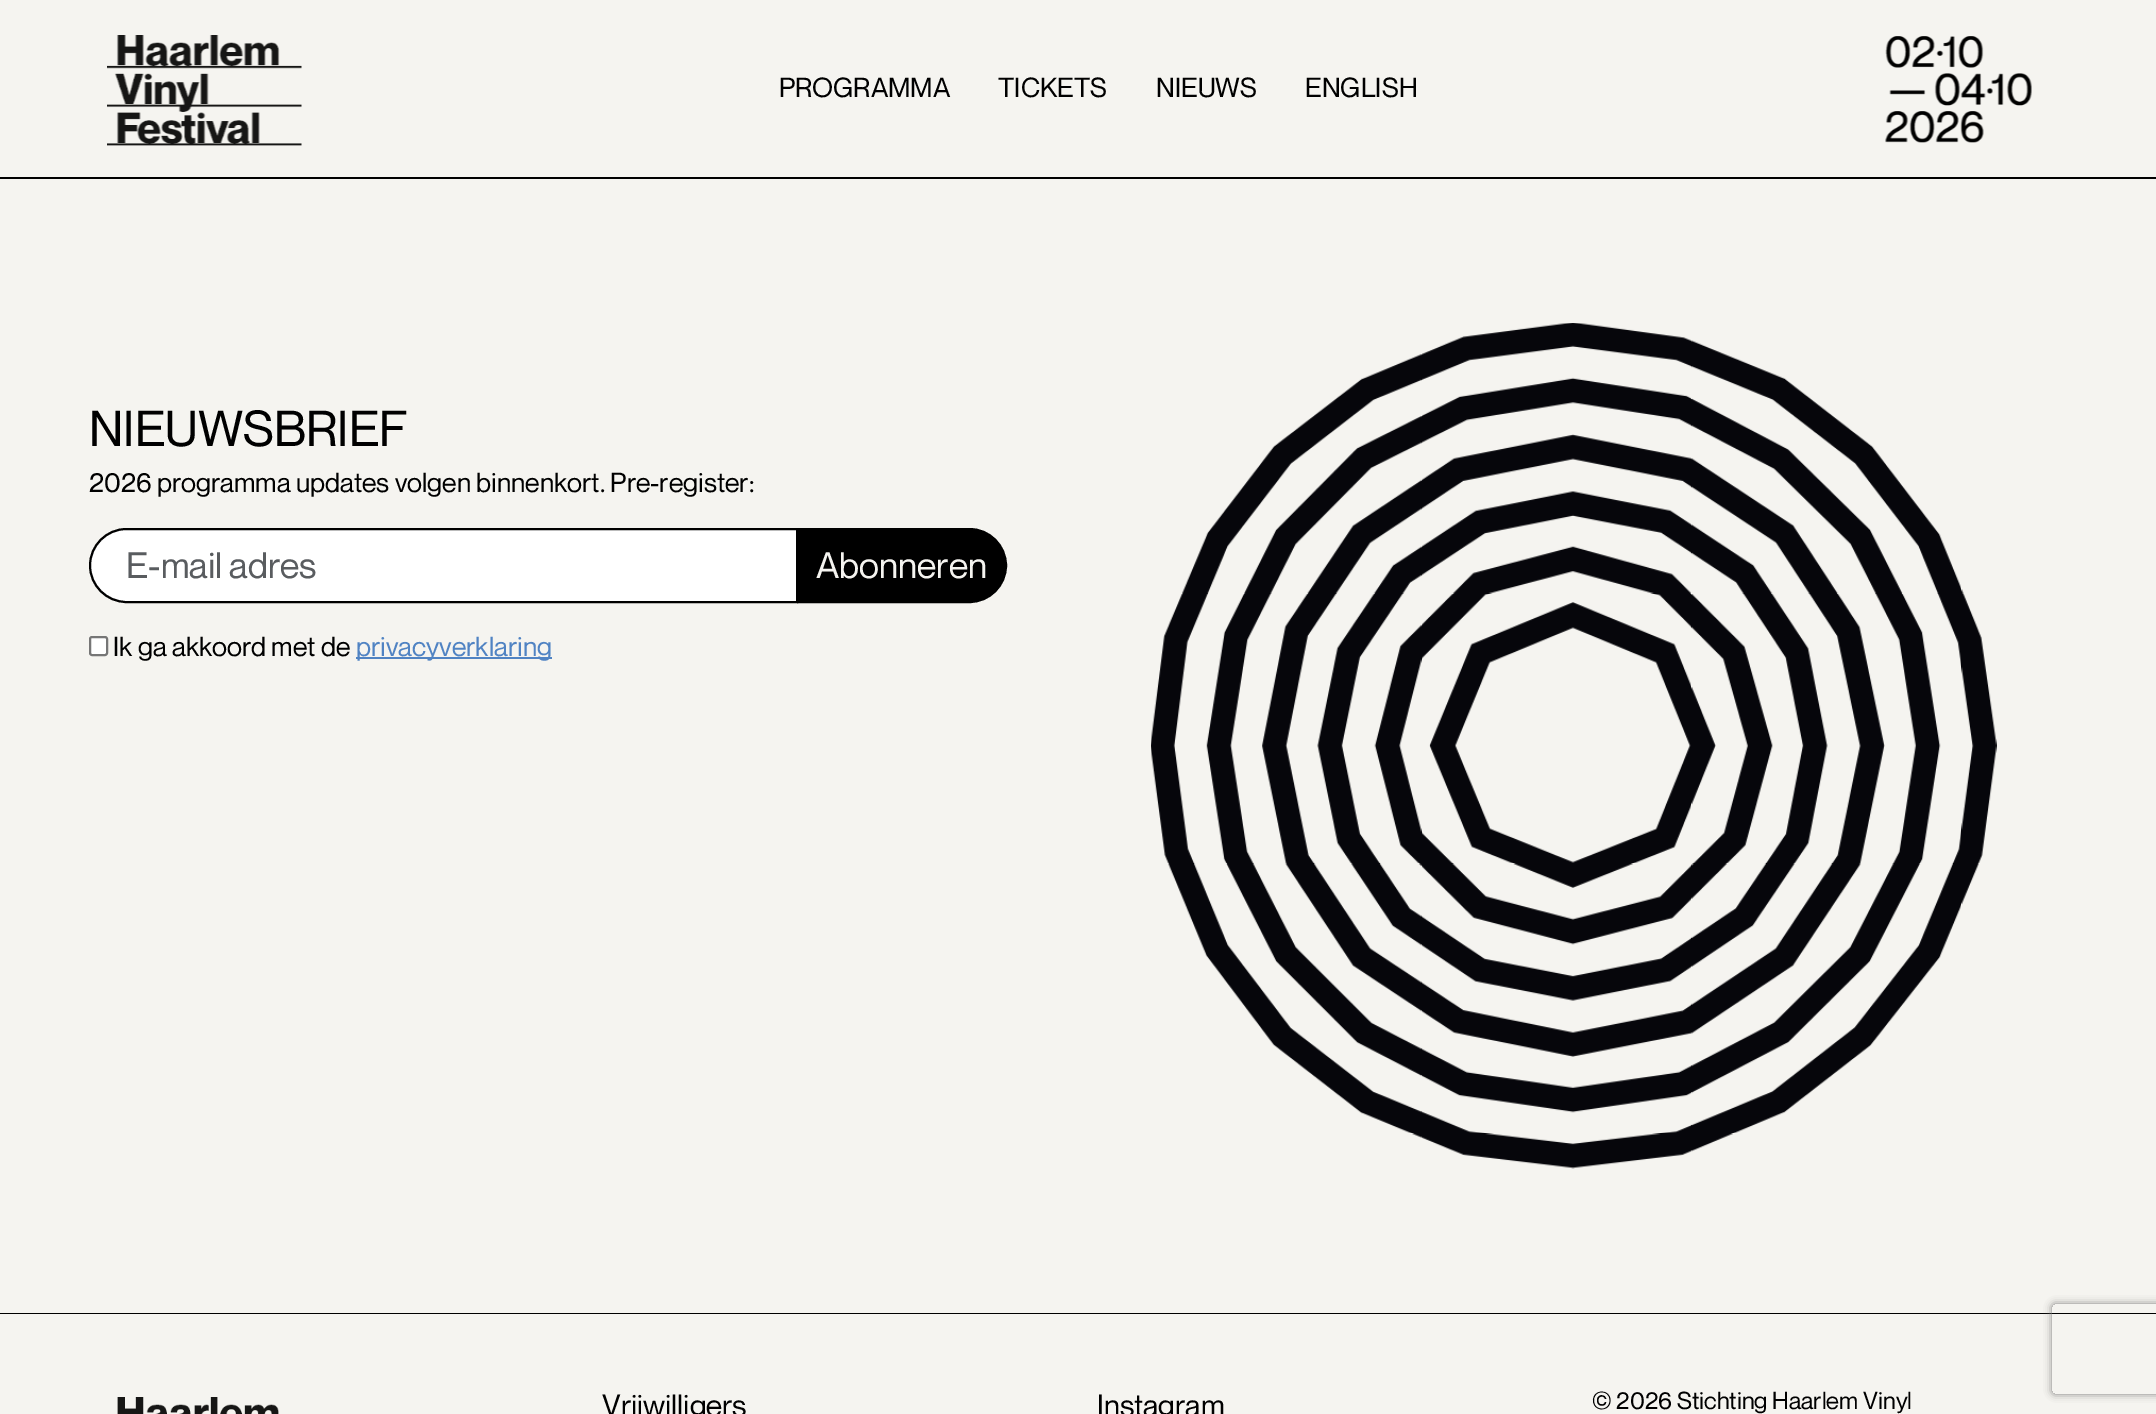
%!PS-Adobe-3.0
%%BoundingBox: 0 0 2156 1414
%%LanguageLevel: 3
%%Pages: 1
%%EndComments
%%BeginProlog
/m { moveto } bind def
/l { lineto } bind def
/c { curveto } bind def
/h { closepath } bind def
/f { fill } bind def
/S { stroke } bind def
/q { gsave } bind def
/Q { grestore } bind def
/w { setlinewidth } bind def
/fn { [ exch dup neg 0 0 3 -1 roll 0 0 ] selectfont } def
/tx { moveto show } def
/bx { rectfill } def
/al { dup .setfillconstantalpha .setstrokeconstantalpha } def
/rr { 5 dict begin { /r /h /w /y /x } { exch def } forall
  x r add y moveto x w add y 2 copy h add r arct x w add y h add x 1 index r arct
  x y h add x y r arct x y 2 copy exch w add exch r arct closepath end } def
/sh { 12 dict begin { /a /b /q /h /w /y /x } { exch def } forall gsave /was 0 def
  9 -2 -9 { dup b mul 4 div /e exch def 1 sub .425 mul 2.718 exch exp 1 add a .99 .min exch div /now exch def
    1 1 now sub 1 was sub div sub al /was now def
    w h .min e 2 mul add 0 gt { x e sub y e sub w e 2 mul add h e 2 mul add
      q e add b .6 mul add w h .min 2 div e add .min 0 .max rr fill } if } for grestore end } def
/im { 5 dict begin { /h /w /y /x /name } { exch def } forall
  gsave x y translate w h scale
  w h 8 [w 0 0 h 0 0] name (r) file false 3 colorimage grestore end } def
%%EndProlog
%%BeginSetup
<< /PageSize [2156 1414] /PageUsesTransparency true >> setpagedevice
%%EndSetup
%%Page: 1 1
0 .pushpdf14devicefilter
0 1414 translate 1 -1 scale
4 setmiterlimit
0.961 0.957 0.941 setrgbcolor
0 0 2156 1414 bx
0 setgray
0 177 2156 2 bx
(image0.raw) 107 35 195 111 im
/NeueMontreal-Regular 27 fn
(PROGRAMMA) 779 97 tx
(TICKETS) 998 97 tx
(NIEUWS) 1156 97 tx
(ENGLISH) 1305 97 tx
(image1.raw) 1885 36 147 107 im
0 1313 2156 1 bx
/NeueMontreal-Regular 49.5 fn
(NIEUWSBRIEF) 89 446 tx
/NeueMontreal-Regular 27 fn
(2026 programma updates volgen binnenkort. Pre-register:) 89 492 tx
1 setgray
126.5 529 m 797 529 l 797 602 l 126.5 602 l 106.5 602 90 585.5 90 565.5 c 90 545.5 106.5 529 126.5 529 c h q f Q
0 setgray
2 w
S
/NeueMontreal-Regular 36 fn
0.349 0.361 0.373 setrgbcolor
(E-mail adres) 126 578 tx
0 setgray
798 529 m 969.5 529 l 989.5 529 1006 545.5 1006 565.5 c 1006 585.5 989.5 602 969.5 602 c 798 602 l h q f Q
S
0.961 0.957 0.941 setrgbcolor
(Abonneren) 816 578 tx
1 setgray
90 637 17 18 2 rr q f Q
0.463 setgray
S
/NeueMontreal-Regular 27 fn
0 setgray
(Ik ga akkoord met de) 113 656 tx
0.314 0.514 0.765 setrgbcolor
356 657 196 2 bx
(privacyverklaring) 356 656 tx
(image2.raw) 1151 323 846 846 im
(image3.raw) 117 1397 162 17 im
/NeueMontreal-Regular 30 fn
0 setgray
(Vrijwilligers) 602 1416 tx
(Instagram) 1097 1416 tx
/NeueMontreal-Regular 24 fn
(© 2026 Stichting Haarlem Vinyl) 1592 1409 tx
q
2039 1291 m 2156 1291 l 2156 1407 l 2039 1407 l h 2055 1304 m 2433 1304 l 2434.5 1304 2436 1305.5 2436 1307 c 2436 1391 l 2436 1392.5 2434.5 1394 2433 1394 c 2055 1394 l 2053.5 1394 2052 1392.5 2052 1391 c 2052 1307 l 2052 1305.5 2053.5 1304 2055 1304 c h eoclip newpath
0.502 setgray
2052 1304 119 90 3 4 1 sh
Q
.poppdf14devicefilter showpage
%%EOF
